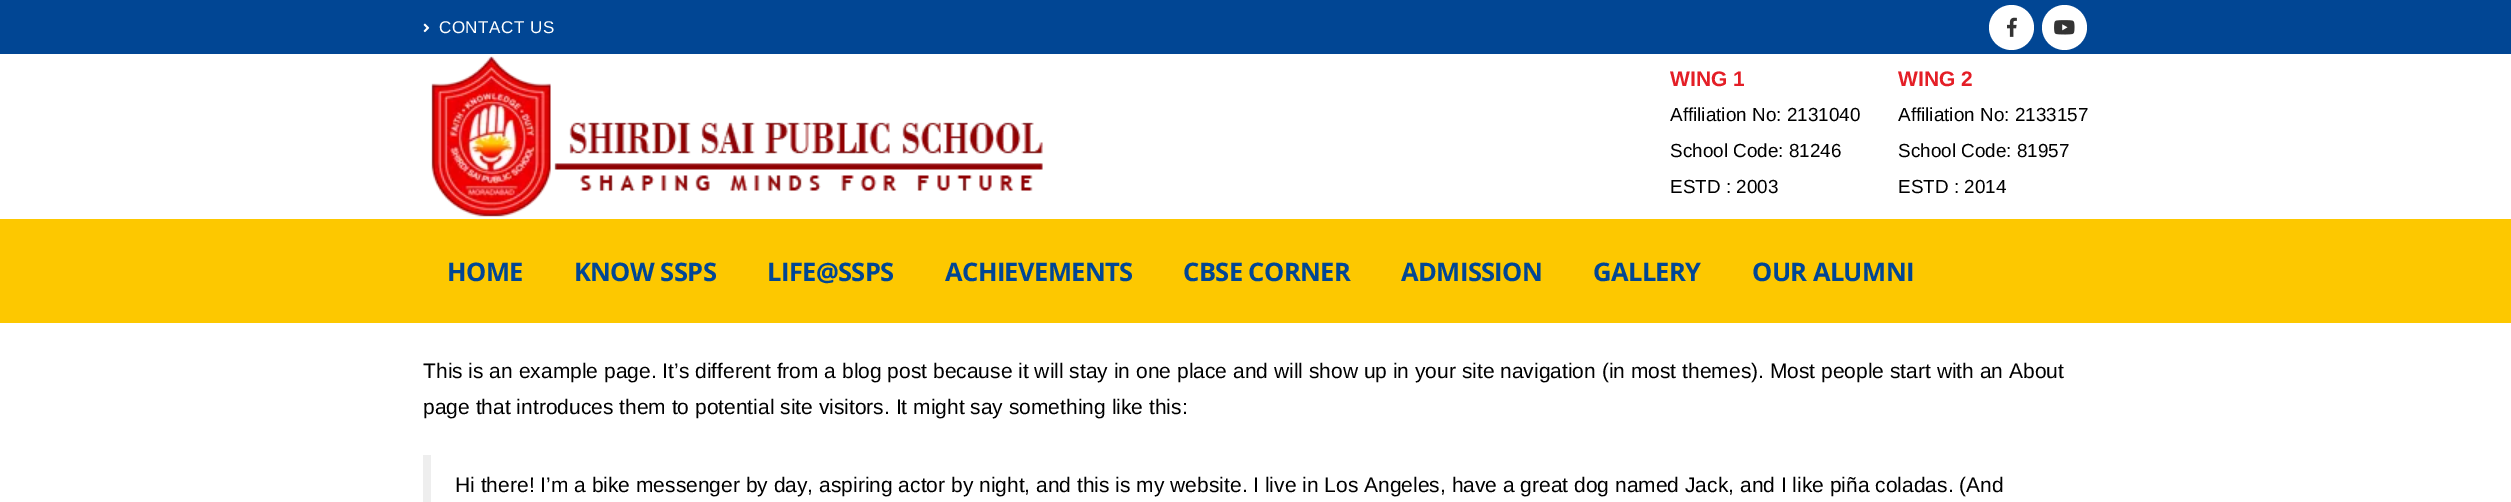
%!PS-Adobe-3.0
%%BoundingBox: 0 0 2511 502
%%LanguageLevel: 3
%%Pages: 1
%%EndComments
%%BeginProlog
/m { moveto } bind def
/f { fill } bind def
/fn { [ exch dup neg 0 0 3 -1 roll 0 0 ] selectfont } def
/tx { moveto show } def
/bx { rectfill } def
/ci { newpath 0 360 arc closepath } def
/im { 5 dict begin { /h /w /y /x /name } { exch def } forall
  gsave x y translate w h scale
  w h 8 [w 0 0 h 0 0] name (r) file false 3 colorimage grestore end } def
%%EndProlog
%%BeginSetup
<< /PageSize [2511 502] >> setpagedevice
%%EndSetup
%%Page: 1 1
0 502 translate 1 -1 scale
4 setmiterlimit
1 setgray
0 0 2511 502 bx
0.004 0.275 0.58 setrgbcolor
0 0 2511 54 bx
(image0.raw) 423 23 7 10 im
/LiberationSans-Regular 17 fn
1 setgray
439 33 m 0.5 0 (CONTACT US) ashow
2011.5 27.5 22.5 ci f
(image1.raw) 2007 17 10 20 im
2064.5 27.5 22.5 ci f
(image2.raw) 2054 20 21 15 im
(image3.raw) 431 56 612 161 im
/LiberationSans-Bold 21 fn
0.894 0.118 0.149 setrgbcolor
(WING 1) 1670 86 tx
/LiberationSans-Regular 18.9 fn
0 setgray
(Affiliation No: 2131040) 1670 121 tx
(School Code: 81246) 1670 157 tx
(ESTD : 2003) 1670 193 tx
/LiberationSans-Bold 21 fn
0.894 0.118 0.149 setrgbcolor
(WING 2) 1898 86 tx
/LiberationSans-Regular 18.9 fn
0 setgray
(Affiliation No: 2133157) 1898 121 tx
(School Code: 81957) 1898 157 tx
(ESTD : 2014) 1898 193 tx
0.992 0.784 0 setrgbcolor
0 219 2511 104 bx
/OpenSans-Bold 25.5 fn
0.004 0.275 0.58 setrgbcolor
447 281 m -0.6 0 (HOME) ashow
574 281 m -0.6 0 (KNOW SSPS) ashow
767 281 m -0.6 0 (LIFE@SSPS) ashow
945 281 m -0.6 0 (ACHIEVEMENTS) ashow
1183 281 m -0.6 0 (CBSE CORNER) ashow
1401 281 m -0.6 0 (ADMISSION) ashow
1593 281 m -0.6 0 (GALLERY) ashow
1752 281 m -0.6 0 (OUR ALUMNI) ashow
/LiberationSans-Regular 21 fn
0 setgray
(This is an example page. It’s different from a blog post because it will stay in one place and will show up in your site navigation \(in most themes\). Most people start with an About) 423 378 tx
(page that introduces them to potential site visitors. It might say something like this:) 423 414 tx
0.933 setgray
423 455 8 47 bx
0 setgray
(Hi there! I’m a bike messenger by day, aspiring actor by night, and this is my website. I live in Los Angeles, have a great dog named Jack, and I like piña coladas. \(And) 455 492 tx
showpage
%%EOF
